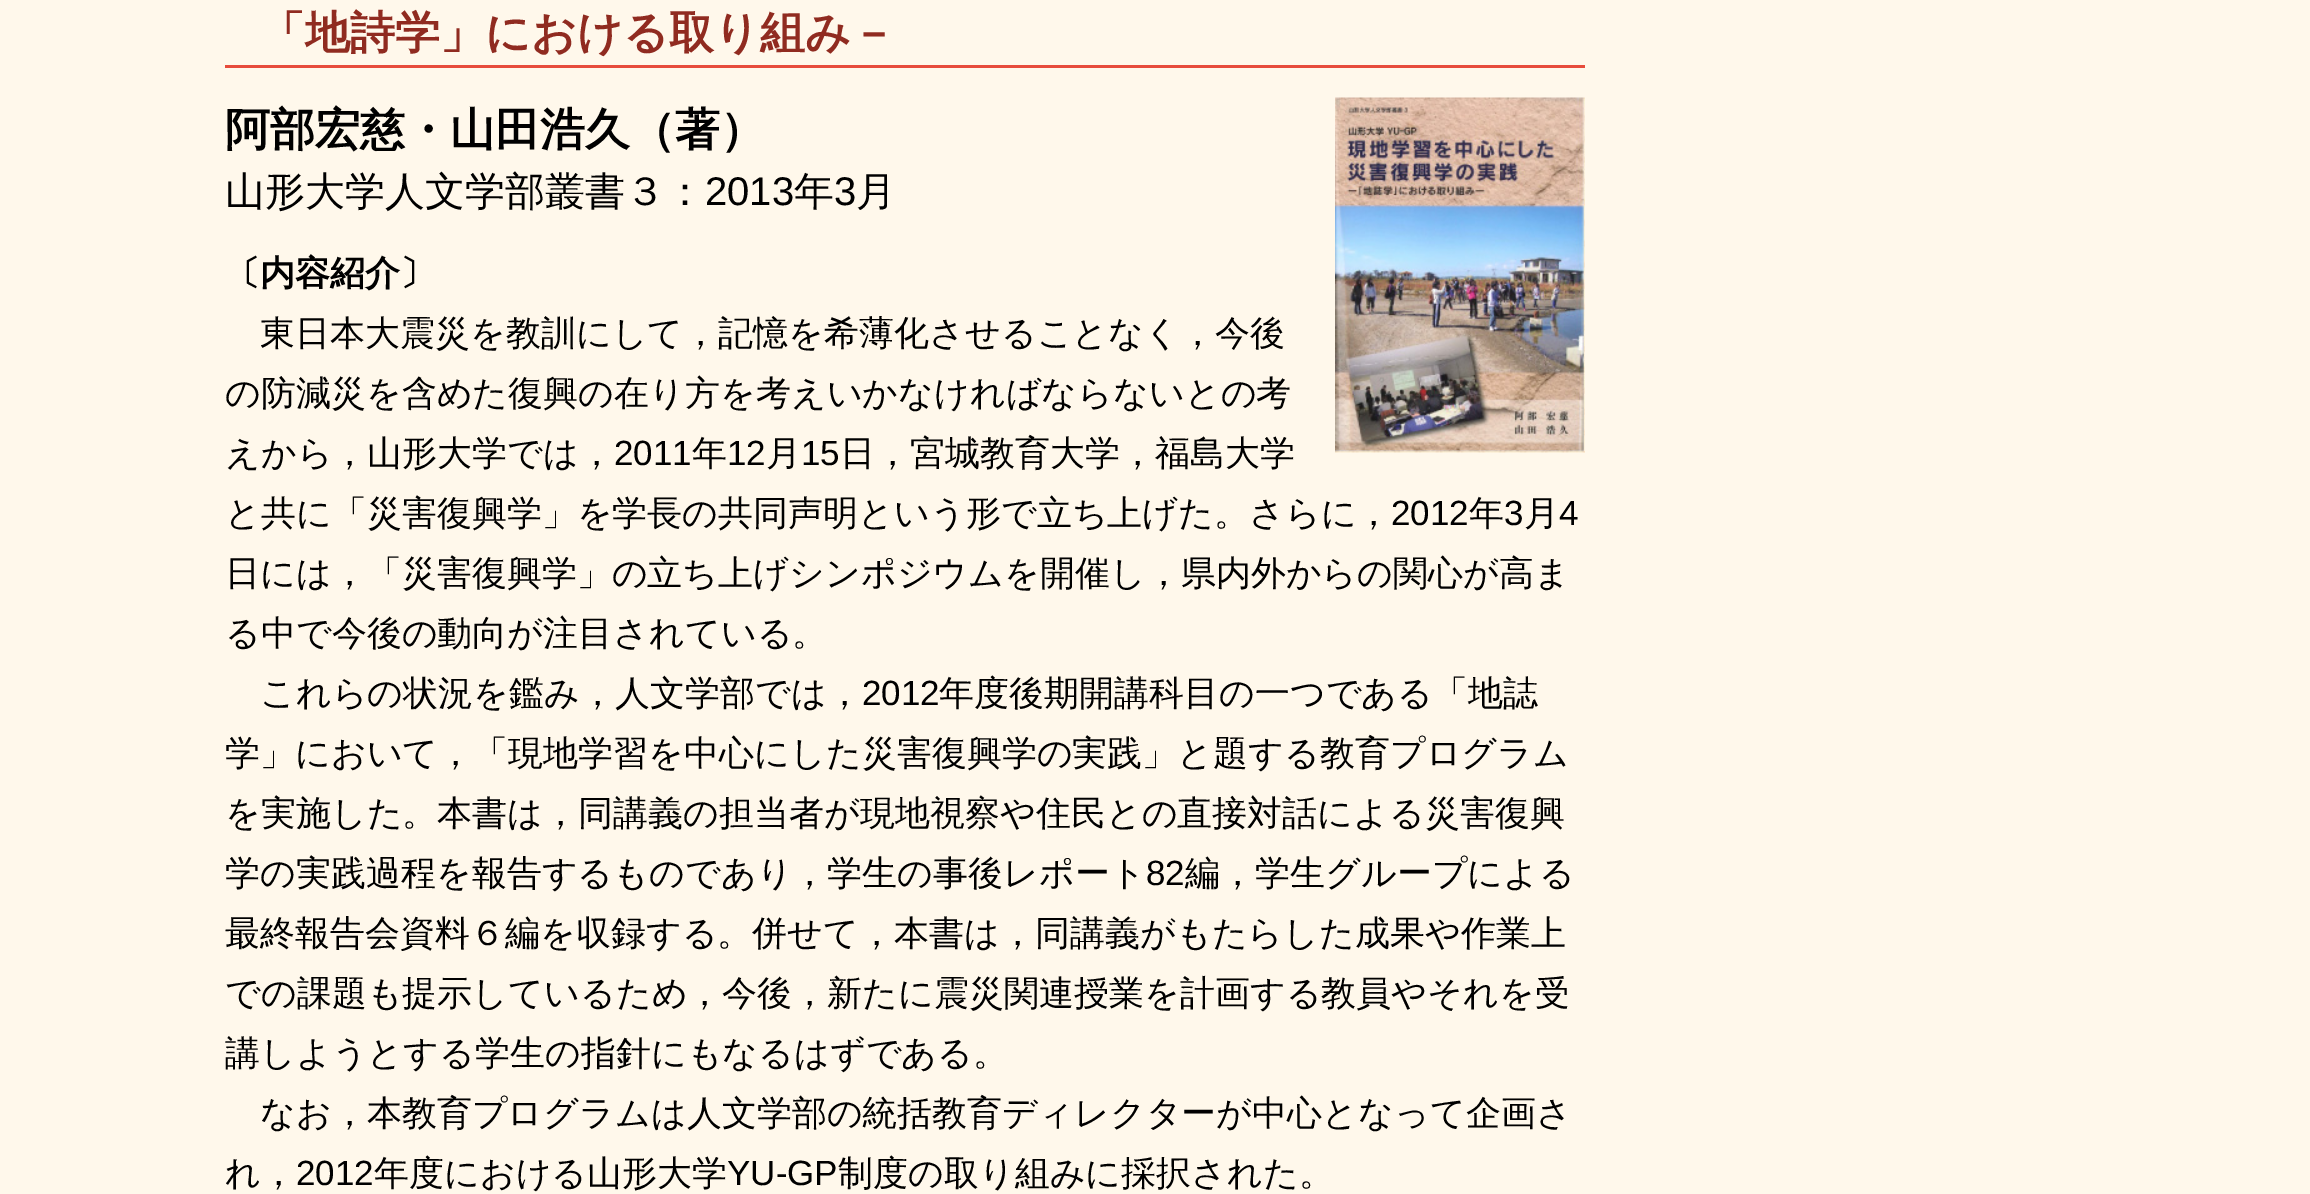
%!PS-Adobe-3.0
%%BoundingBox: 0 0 2310 1194
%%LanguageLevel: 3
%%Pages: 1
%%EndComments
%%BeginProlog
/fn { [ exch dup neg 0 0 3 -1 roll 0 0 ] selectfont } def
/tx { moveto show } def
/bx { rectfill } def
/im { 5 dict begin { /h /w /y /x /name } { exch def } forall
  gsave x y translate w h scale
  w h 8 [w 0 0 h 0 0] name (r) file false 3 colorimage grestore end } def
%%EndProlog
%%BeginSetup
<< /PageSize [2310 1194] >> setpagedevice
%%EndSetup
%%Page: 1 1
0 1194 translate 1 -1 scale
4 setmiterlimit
1 0.973 0.922 setrgbcolor
0 0 2310 1194 bx
0.906 0.298 0.235 setrgbcolor
225 65 1360 3 bx
/WenQuanYiZenHei-Bold 45 fn
0.565 0.169 0.125 setrgbcolor
(「地詩学」における取り組み－) 260 48 tx
0 setgray
(阿部宏慈・山田浩久（著）) 225 145 tx
(image0.raw) 1335 97 250 356 im
/WenQuanYiZenHei-Medium 40 fn
(山形大学人文学部叢書３：) 225 205 tx
/LiberationSans-Regular 40 fn
(2013) 705 205 tx
/WenQuanYiZenHei-Medium 40 fn
(年) 794 205 tx
/LiberationSans-Regular 40 fn
(3) 834 205 tx
/WenQuanYiZenHei-Medium 40 fn
(月) 856 205 tx
/WenQuanYiZenHei-Bold 35 fn
(〔内容紹介〕) 225 285 tx
/WenQuanYiZenHei-Medium 35 fn
(東日本大震災を教訓にして，記憶を希薄化させることなく，今後) 260 345 tx
(の防減災を含めた復興の在り方を考えいかなければならないとの考) 225 405 tx
(えから，山形大学では，) 225 465 tx
/LiberationSans-Regular 35 fn
(2011) 614 465 tx
/WenQuanYiZenHei-Medium 35 fn
(年) 692 465 tx
/LiberationSans-Regular 35 fn
(12) 727 465 tx
/WenQuanYiZenHei-Medium 35 fn
(月) 766 465 tx
/LiberationSans-Regular 35 fn
(15) 801 465 tx
/WenQuanYiZenHei-Medium 35 fn
(日，宮城教育大学，福島大学) 840 465 tx
(と共に「災害復興学」を学長の共同声明という形で立ち上げた。さらに，) 225 525 tx
/LiberationSans-Regular 35 fn
(2012) 1391 525 tx
/WenQuanYiZenHei-Medium 35 fn
(年) 1469 525 tx
/LiberationSans-Regular 35 fn
(3) 1504 525 tx
/WenQuanYiZenHei-Medium 35 fn
(月) 1524 525 tx
/LiberationSans-Regular 35 fn
(4) 1559 525 tx
/WenQuanYiZenHei-Medium 35 fn
(日には，「災害復興学」の立ち上げシンポジウムを開催し，県内外からの関心が高ま) 225 585 tx
(る中で今後の動向が注目されている。) 225 645 tx
(これらの状況を鑑み，人文学部では，) 260 705 tx
/LiberationSans-Regular 35 fn
(2012) 862 705 tx
/WenQuanYiZenHei-Medium 35 fn
(年度後期開講科目の一つである「地誌) 939 705 tx
(学」において，「現地学習を中心にした災害復興学の実践」と題する教育プログラム) 225 765 tx
(を実施した。本書は，同講義の担当者が現地視察や住民との直接対話による災害復興) 225 825 tx
(学の実践過程を報告するものであり，学生の事後レポート) 225 885 tx
/LiberationSans-Regular 35 fn
(82) 1146 885 tx
/WenQuanYiZenHei-Medium 35 fn
(編，学生グループによる) 1185 885 tx
(最終報告会資料６編を収録する。併せて，本書は，同講義がもたらした成果や作業上) 225 945 tx
(での課題も提示しているため，今後，新たに震災関連授業を計画する教員やそれを受) 225 1005 tx
(講しようとする学生の指針にもなるはずである。) 225 1065 tx
(なお，本教育プログラムは人文学部の統括教育ディレクターが中心となって企画さ) 260 1125 tx
(れ，) 225 1185 tx
/LiberationSans-Regular 35 fn
(2012) 296 1185 tx
/WenQuanYiZenHei-Medium 35 fn
(年度における山形大学) 374 1185 tx
/LiberationSans-Regular 35 fn
(YU-GP) 727 1185 tx
/WenQuanYiZenHei-Medium 35 fn
(制度の取り組みに採択された。) 838 1185 tx
showpage
%%EOF
